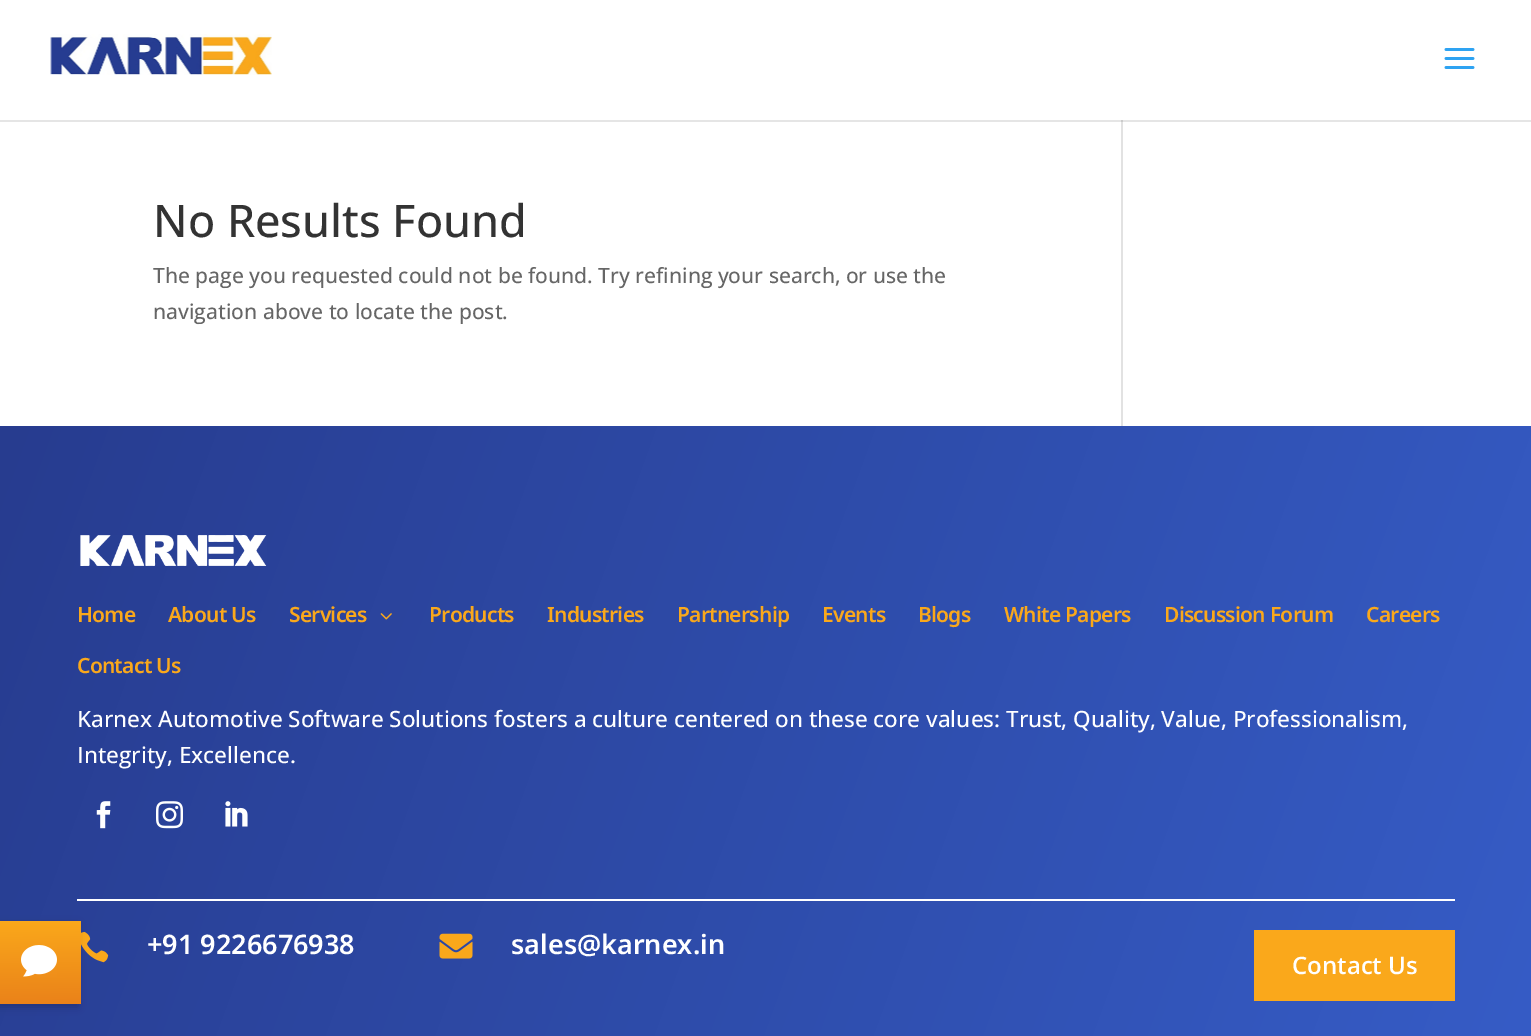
%!PS-Adobe-3.0
%%BoundingBox: 0 0 1531 1036
%%LanguageLevel: 3
%%Pages: 1
%%EndComments
%%BeginProlog
/m { moveto } bind def
/l { lineto } bind def
/h { closepath } bind def
/f { fill } bind def
/q { gsave } bind def
/Q { grestore } bind def
/fn { [ exch dup neg 0 0 3 -1 roll 0 0 ] selectfont } def
/tx { moveto show } def
/bx { rectfill } def
/al { dup .setfillconstantalpha .setstrokeconstantalpha } def
/rr { 5 dict begin { /r /h /w /y /x } { exch def } forall
  x r add y moveto x w add y 2 copy h add r arct x w add y h add x 1 index r arct
  x y h add x y r arct x y 2 copy exch w add exch r arct closepath end } def
/sh { 12 dict begin { /a /b /q /h /w /y /x } { exch def } forall gsave /was 0 def
  9 -2 -9 { dup b mul 4 div /e exch def 1 sub .425 mul 2.718 exch exp 1 add a .99 .min exch div /now exch def
    1 1 now sub 1 was sub div sub al /was now def
    w h .min e 2 mul add 0 gt { x e sub y e sub w e 2 mul add h e 2 mul add
      q e add b .6 mul add w h .min 2 div e add .min 0 .max rr fill } if } for grestore end } def
/im { 5 dict begin { /h /w /y /x /name } { exch def } forall
  gsave x y translate w h scale
  w h 8 [w 0 0 h 0 0] name (r) file false 3 colorimage grestore end } def
%%EndProlog
%%BeginSetup
<< /PageSize [1531 1036] /PageUsesTransparency true >> setpagedevice
%%EndSetup
%%Page: 1 1
0 .pushpdf14devicefilter
0 1036 translate 1 -1 scale
4 setmiterlimit
1 setgray
0 0 1531 1036 bx
0.886 setgray
1121 120 2 306 bx
0.1 al
0 setgray
0 120 m 0 122 l 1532 122 l 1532 2 l 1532 120 l h f
1 al
(image0.raw) 50 34 222 41 im
(image1.raw) 1444 48 31 21 im
/OpenSans-Medium 45 fn
0.2 setgray
(No Results Found) 153 237 tx
/OpenSans-Medium 21 fn
0.4 setgray
(The page you requested could not be found. Try refining your search, or use the) 153 283 tx
(navigation above to locate the post.) 153 319 tx
q 0 426 m 1531 426 l 1531 1036 l 0 1036 l h clip newpath
<< /ShadingType 2 /ColorSpace /DeviceRGB /Coords [-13 461 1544 1028] /Extend [true true] /Function << /FunctionType 2 /Domain [0 1] /C0 [0.153 0.235 0.561] /C1 [0.212 0.361 0.776] /N 1 >> >> shfill Q
1 setgray
77 899 1378 2 bx
(image2.raw) 80 535 187 31 im
/NotoSans-SemiBold 21 fn
0.98 0.659 0.106 setrgbcolor
77 622 m -0.75 0 (Home) ashow
168 622 m -0.75 0 (About Us) ashow
289 622 m -0.75 0 (Services) ashow
(image3.raw) 380 613 12 7 im
429 622 m -0.75 0 (Products) ashow
547 622 m -0.75 0 (Industries) ashow
677 622 m -0.75 0 (Partnership) ashow
822 622 m -0.75 0 (Events) ashow
918 622 m -0.75 0 (Blogs) ashow
1004 622 m -0.75 0 (White Papers) ashow
1164 622 m -0.75 0 (Discussion Forum) ashow
1366 622 m -0.75 0 (Careers) ashow
77 673 m -0.75 0 (Contact Us) ashow
/OpenSans-Medium 22.5 fn
1 setgray
(Karnex Automotive Software Solutions fosters a culture centered on these core values: Trust, Quality, Value, Professionalism,) 77 727 tx
(Integrity, Excellence.) 77 763 tx
(image4.raw) 96 801 15 28 im
(image5.raw) 156 801 27 28 im
(image6.raw) 225 801 23 26 im
(image8.raw) 81 931 28 32 im
0 setgray
-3 924 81 83 0 4 0.2 sh
q 0 921 m 81 921 l 81 1004 l 0 1004 l h clip newpath
<< /ShadingType 2 /ColorSpace /DeviceRGB /Coords [40 921 41 1004] /Extend [true true] /Function << /FunctionType 2 /Domain [0 1] /C0 [0.98 0.659 0.106] /C1 [0.918 0.51 0.098] /N 1 >> >> shfill Q
(image7.raw) 21 945 36 32 im
/NotoSans-SemiBold 27 fn
1 setgray
(+91 9226676938) 147 954 tx
(image9.raw) 439 933 34 26 im
(sales@karnex.in) 511 954 tx
0.98 0.659 0.106 setrgbcolor
1254 930 201 71 bx
/OpenSans-SemiBold 24 fn
1 setgray
(Contact Us) 1292 974 tx
.poppdf14devicefilter showpage
%%EOF
